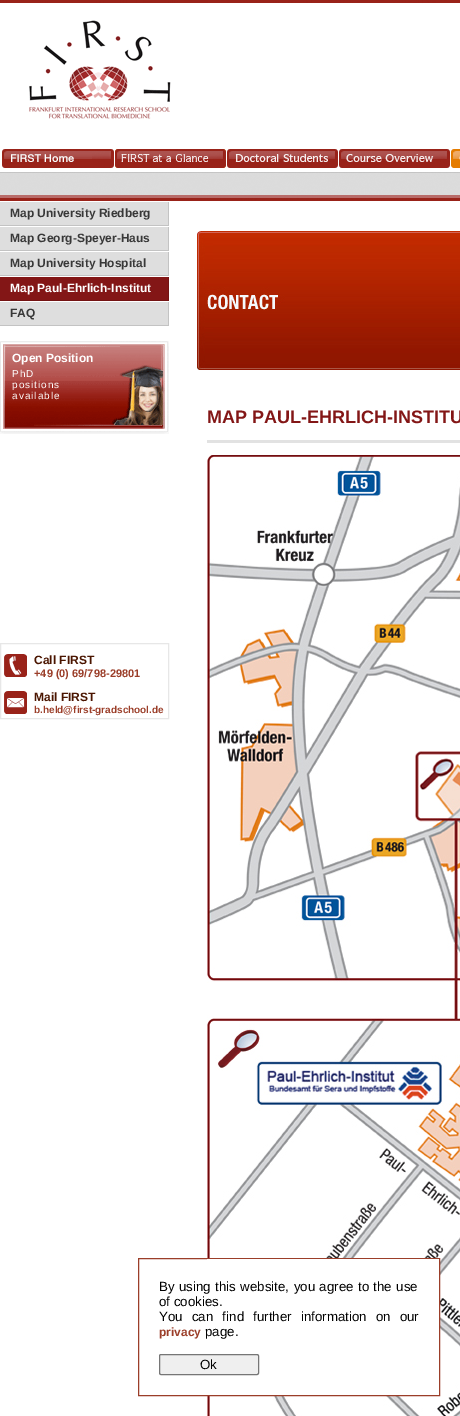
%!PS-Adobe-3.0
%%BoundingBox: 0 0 460 1416
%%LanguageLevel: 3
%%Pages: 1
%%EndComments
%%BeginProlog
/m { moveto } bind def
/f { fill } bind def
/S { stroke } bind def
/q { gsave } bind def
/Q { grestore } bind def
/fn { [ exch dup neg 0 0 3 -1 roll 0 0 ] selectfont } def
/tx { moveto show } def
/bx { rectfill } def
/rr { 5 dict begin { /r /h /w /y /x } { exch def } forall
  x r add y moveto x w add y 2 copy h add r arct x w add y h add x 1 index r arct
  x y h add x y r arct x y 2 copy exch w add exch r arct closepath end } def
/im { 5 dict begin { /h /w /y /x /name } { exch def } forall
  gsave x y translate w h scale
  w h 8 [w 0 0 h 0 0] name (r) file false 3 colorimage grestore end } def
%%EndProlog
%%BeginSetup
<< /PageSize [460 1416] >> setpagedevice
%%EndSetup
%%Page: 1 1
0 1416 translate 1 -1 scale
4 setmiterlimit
1 setgray
0 0 460 1416 bx
(image0.raw) 0 172 460 29 im
0.871 setgray
0 202 168 23 bx
0.765 setgray
168 202 1 24 bx
0 225 169 1 bx
/LiberationSans-Bold 12 fn
0.22 setgray
(Map University Riedberg) 10 217 tx
0.871 setgray
0 227 168 23 bx
0.765 setgray
168 227 1 24 bx
0 250 169 1 bx
0.22 setgray
(Map Georg-Speyer-Haus) 10 242 tx
0.871 setgray
0 252 168 23 bx
0.765 setgray
168 252 1 24 bx
0 275 169 1 bx
0.22 setgray
(Map University Hospital) 10 267 tx
0.514 0.086 0.086 setrgbcolor
0 277 168 23 bx
0.451 0.075 0.075 setrgbcolor
168 277 1 24 bx
0 300 169 1 bx
1 setgray
(Map Paul-Ehrlich-Institut) 10 292 tx
0.871 setgray
0 302 168 23 bx
0.765 setgray
168 302 1 24 bx
0 325 169 1 bx
0.22 setgray
(FAQ) 10 317 tx
(image1.raw) 0 341 169 93 im
1 setgray
(Open Position) 12 362 tx
/LiberationSans-Regular 10 fn
12 377 m 1 0 (PhD) ashow
12 388 m 1 0 (positions) ashow
12 399 m 1 0 (available) ashow
0.906 setgray
0.5 643.5 168 75 rectstroke
(image2.raw) 4 654 23 23 im
/LiberationSans-Bold 12 fn
0.29 0.082 0 setrgbcolor
(Call FIRST) 34 664 tx
/LiberationSans-Bold 11 fn
0.608 0.243 0.161 setrgbcolor
(+49 \(0\) 69/798-29801) 34 677 tx
(image3.raw) 4 691 23 23 im
/LiberationSans-Bold 12 fn
0.29 0.082 0 setrgbcolor
(Mail FIRST) 34 701 tx
/LiberationSans-Bold 10 fn
0.608 0.243 0.161 setrgbcolor
(b.held@first-gradschool.de) 34 713 tx
(image4.raw) 197 231 263 139 im
/LiberationSans-Bold 18 fn
0.514 0.086 0.086 setrgbcolor
(MAP PAUL-EHRLICH-INSTITU) 207 423 tx
0.886 setgray
207 440 253 3 bx
(image5.raw) 207 455 253 961 im
(image6.raw) 0 0 460 119 im
(image7.raw) 2 149 112 19 im
(image8.raw) 115 149 111 19 im
(image9.raw) 227 149 111 19 im
(image10.raw) 339 149 111 19 im
(image11.raw) 451 149 9 19 im
0.608 0.243 0.161 setrgbcolor
138.5 1258.5 301 137 rectstroke
1 setgray
207 1259 232 136 bx
/LiberationSans-Regular 13.3 fn
0 setgray
159 1291 m 0.75 0 32 (By using this website, you agree to the use) widthshow
(of cookies.) 159 1306 tx
159 1321 m 5.5 0 32 (You can find further information on our) widthshow
/LiberationSans-Bold 12 fn
0.608 0.243 0.161 setrgbcolor
(privacy) 159 1336 tx
/LiberationSans-Regular 13.3 fn
0 setgray
(page.) 205 1336 tx
0.937 setgray
159.5 1354.5 99 20 1.5 rr q f Q
0.463 setgray
S
0 setgray
(Ok) 200 1369 tx
showpage
%%EOF
